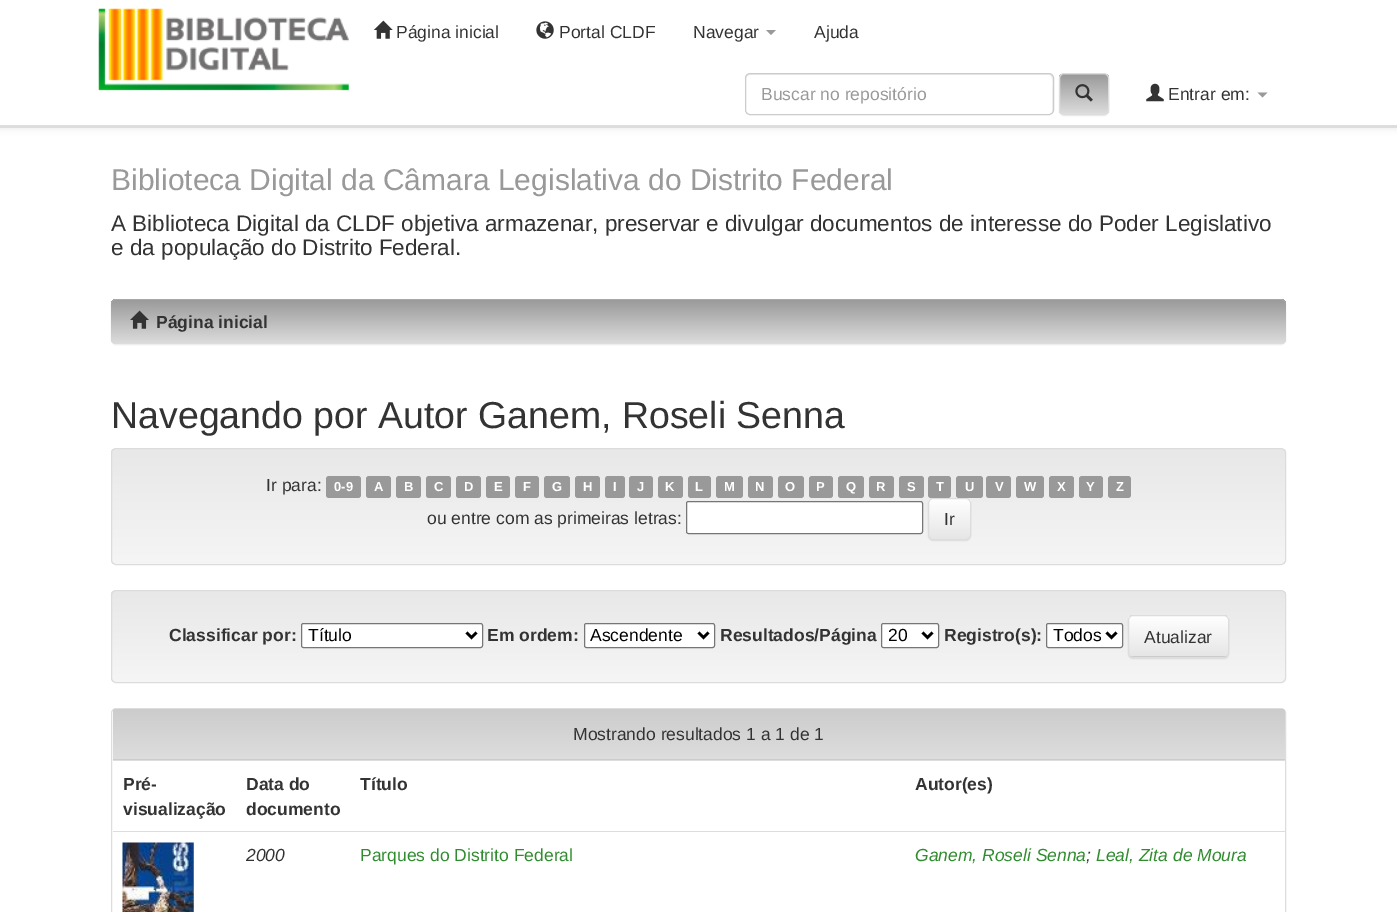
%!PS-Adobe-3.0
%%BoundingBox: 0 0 1397 912
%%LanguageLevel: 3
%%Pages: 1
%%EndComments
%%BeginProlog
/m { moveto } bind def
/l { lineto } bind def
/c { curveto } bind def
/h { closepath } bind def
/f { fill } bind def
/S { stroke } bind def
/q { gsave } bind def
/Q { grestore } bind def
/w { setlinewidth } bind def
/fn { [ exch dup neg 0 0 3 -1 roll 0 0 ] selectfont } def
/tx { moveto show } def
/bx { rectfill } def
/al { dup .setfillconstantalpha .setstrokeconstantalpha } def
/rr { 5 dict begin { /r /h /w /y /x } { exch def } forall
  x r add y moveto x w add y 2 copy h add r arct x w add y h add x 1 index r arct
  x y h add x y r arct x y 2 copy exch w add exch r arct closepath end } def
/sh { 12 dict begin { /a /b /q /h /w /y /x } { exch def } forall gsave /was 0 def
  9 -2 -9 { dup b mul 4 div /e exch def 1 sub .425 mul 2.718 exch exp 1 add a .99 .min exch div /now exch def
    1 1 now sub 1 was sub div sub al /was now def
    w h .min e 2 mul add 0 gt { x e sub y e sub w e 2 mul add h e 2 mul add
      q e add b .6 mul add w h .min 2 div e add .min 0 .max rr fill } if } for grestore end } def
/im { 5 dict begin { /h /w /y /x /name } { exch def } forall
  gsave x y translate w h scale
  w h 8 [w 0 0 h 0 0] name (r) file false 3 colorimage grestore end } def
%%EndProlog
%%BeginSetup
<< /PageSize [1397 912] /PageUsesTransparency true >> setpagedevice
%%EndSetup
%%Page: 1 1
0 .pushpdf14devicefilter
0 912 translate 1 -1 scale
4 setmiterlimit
1 setgray
0 0 1397 912 bx
0 setgray
0 1 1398 128 0 3 0.07 sh
1 setgray
0 0 1397 125 bx
0.867 setgray
0 125 1397 3 bx
(image0.raw) 98 8 251 83 im
(image1.raw) 373 20 20 19 im
/LiberationSans-Regular 17.5 fn
0.2 setgray
(Página inicial) 396 38 tx
(image2.raw) 536 21 18 18 im
(Portal CLDF) 559 38 tx
(Navegar) 693 38 tx
0.6 setgray
766 30 m 776 30 l 771 35 l h f
0.2 setgray
(Ajuda) 814 38 tx
0.925 setgray
750 75 m 1049 75 l 1054 75 1052 88 1052 90 c 1052 113 l 1052 112 1053 111 1053 110 c 1053 78 l 1053 76 1051 74 1049 74 c 750 74 l 748 74 746 76 746 78 c 746 79 l 746 77 748 75 750 75 c h f
0.8 setgray
745.5 73.5 308 41 4.5 rr S
0.6 setgray
(Buscar no repositório) 761 100 tx
0 setgray
1059 74 50 42 5 0.5 0.07 sh
q
1059 73 50 42 5 rr clip newpath
q 1059 74 m 1109 74 l 1109 114 l 1059 114 l h clip newpath
<< /ShadingType 2 /ColorSpace /DeviceRGB /Coords [1084 74 1084 114] /Extend [true true] /Function << /FunctionType 2 /Domain [0 1] /C0 [0.6 0.6 0.6] /C1 [0.867 0.867 0.867] /N 1 >> >> shfill Q
Q
0.663 setgray
1064 75 m 1104 75 l 1106 75 1108 77 1108 79 c 1108 73 1102 74 1097 74 c 1071 74 l 1066 74 1060 73 1060 79 c 1060 77 1062 75 1064 75 c h f
0.867 setgray
1059.5 73.5 49 41 4.5 rr S
(image3.raw) 1075 84 18 18 im
(image4.raw) 1146 83 18 19 im
0.2 setgray
(Entrar em:) 1168 100 tx
0.6 setgray
1257.5 92.5 m 1267.5 92.5 l 1262.5 97.5 l h f
/LiberationSans-Regular 30 fn
(Biblioteca Digital da Câmara Legislativa do Distrito Federal) 111 190 tx
/LiberationSans-Regular 22.5 fn
0.2 setgray
(A Biblioteca Digital da CLDF objetiva armazenar, preservar e divulgar documentos de interesse do Poder Legislativo) 111 231 tx
(e da população do Distrito Federal.) 111 255 tx
0 setgray
111 300 1175 45 5 0.5 0.07 sh
q 111 299 1175 45 5 rr clip newpath
<< /ShadingType 2 /ColorSpace /DeviceRGB /Coords [699 299 699 344] /Extend [true true] /Function << /FunctionType 2 /Domain [0 1] /C0 [0.6 0.6 0.6] /C1 [0.867 0.867 0.867] /N 1 >> >> shfill Q
0.15 al
1 setgray
116 300 m 1281 300 l 1284 300 1286 302 1286 305 c 1286 302 1284 299 1281 299 c 116 299 l 113 299 111 302 111 305 c 111 302 113 300 116 300 c h f
1 al
(image5.raw) 130 310 19 19 im
/LiberationSans-Bold 17.5 fn
0.2 setgray
(Página inicial) 156 328 tx
/LiberationSans-Regular 37.5 fn
(Navegando por Autor Ganem, Roseli Senna) 111 428 tx
q
111 448 1175 117 5 rr clip newpath
q 111 449 m 1286 449 l 1286 564 l 111 564 l h clip newpath
<< /ShadingType 2 /ColorSpace /DeviceRGB /Coords [699 449 699 564] /Extend [true true] /Function << /FunctionType 2 /Domain [0 1] /C0 [0.91 0.91 0.91] /C1 [0.961 0.961 0.961] /N 1 >> >> shfill Q
Q
0.863 setgray
111.5 448.5 1174 116 4.5 rr S
/LiberationSans-Regular 17.5 fn
0.2 setgray
(Ir para:) 266 491 tx
0.6 setgray
326 476 35 22 3 rr f
/LiberationSans-Bold 13 fn
1 setgray
(0-9) 334 491 tx
0.6 setgray
366 476 25 22 3 rr f
1 setgray
(A) 374 491 tx
0.6 setgray
396 476 25 22 3 rr f
1 setgray
(B) 404 491 tx
0.6 setgray
426 476 25 22 3 rr f
1 setgray
(C) 434 491 tx
0.6 setgray
456 476 25 22 3 rr f
1 setgray
(D) 464 491 tx
0.6 setgray
486 476 24 22 3 rr f
1 setgray
(E) 494 491 tx
0.6 setgray
515 476 24 22 3 rr f
1 setgray
(F) 523 491 tx
0.6 setgray
544 476 26 22 3 rr f
1 setgray
(G) 552 491 tx
0.6 setgray
575 476 25 22 3 rr f
1 setgray
(H) 583 491 tx
0.6 setgray
605 476 20 22 3 rr f
1 setgray
(I) 613 491 tx
0.6 setgray
629 476 24 22 3 rr f
1 setgray
(J) 637 491 tx
0.6 setgray
658 476 25 22 3 rr f
1 setgray
(K) 665 491 tx
0.6 setgray
688 476 23 22 3 rr f
1 setgray
(L) 695 491 tx
0.6 setgray
716 476 27 22 3 rr f
1 setgray
(M) 724 491 tx
0.6 setgray
748 476 25 22 3 rr f
1 setgray
(N) 755 491 tx
0.6 setgray
778 476 26 22 3 rr f
1 setgray
(O) 785 491 tx
0.6 setgray
809 476 24 22 3 rr f
1 setgray
(P) 816 491 tx
0.6 setgray
838 476 26 22 3 rr f
1 setgray
(Q) 846 491 tx
0.6 setgray
869 476 25 22 3 rr f
1 setgray
(R) 876 491 tx
0.6 setgray
899 476 25 22 3 rr f
1 setgray
(S) 907 491 tx
0.6 setgray
928 476 23 22 3 rr f
1 setgray
(T) 936 491 tx
0.6 setgray
956 476 27 22 3 rr f
1 setgray
(U) 965 491 tx
0.6 setgray
986 476 25 22 3 rr f
1 setgray
(V) 995 491 tx
0.6 setgray
1016 476 28 22 3 rr f
1 setgray
(W) 1024 491 tx
0.6 setgray
1049 476 25 22 3 rr f
1 setgray
(X) 1057 491 tx
0.6 setgray
1079 476 24 22 3 rr f
1 setgray
(Y) 1086 491 tx
0.6 setgray
1108 476 23 22 3 rr f
1 setgray
(Z) 1116 491 tx
/LiberationSans-Regular 17.5 fn
0.2 setgray
(ou entre com as primeiras letras:) 427 524 tx
1 setgray
686.5 501.5 236 32 2 rr q f Q
0.463 setgray
S
0 setgray
928 499 43 42 5 0.5 0.07 sh
q
928 498 43 42 5 rr clip newpath
q 928 499 m 971 499 l 971 539 l 928 539 l h clip newpath
<< /ShadingType 2 /ColorSpace /DeviceRGB /Coords [949 499 949 539] /Extend [true true] /Function << /FunctionType 2 /Domain [0 1] /C0 [1 1 1] /C1 [0.902 0.902 0.902] /N 1 >> >> shfill Q
Q
0.867 setgray
928.5 498.5 42 41 4.5 rr S
0.2 setgray
(Ir) 944 525 tx
0.961 setgray
111 590 1175 93 5 rr f
q
111 590 1175 93 5 rr clip newpath
q 111 591 m 1286 591 l 1286 681 l 111 681 l h clip newpath
<< /ShadingType 2 /ColorSpace /DeviceRGB /Coords [699 591 699 681] /Extend [true true] /Function << /FunctionType 2 /Domain [0 1] /C0 [0.91 0.91 0.91] /C1 [0.961 0.961 0.961] /N 1 >> >> shfill Q
Q
0.863 setgray
111.5 590.5 1174 92 4.5 rr S
/LiberationSans-Bold 17.5 fn
0.2 setgray
(Classificar por:) 169 641 tx
1 setgray
301.5 623.5 181 24 2 rr q f Q
0.463 setgray
S
0 setgray
2.5 w
466.5 632.5 m 471.5 637.5 l 476.5 632.5 l S
/LiberationSans-Regular 17.5 fn
(Título) 308 641 tx
/LiberationSans-Bold 17.5 fn
0.2 setgray
(Em ordem:) 487 641 tx
1 setgray
584.5 623.5 130 24 2 rr q f Q
0.463 setgray
1 w
S
0 setgray
2.5 w
698.5 632.5 m 703.5 637.5 l 708.5 632.5 l S
/LiberationSans-Regular 17.5 fn
(Ascendente) 590 641 tx
/LiberationSans-Bold 17.5 fn
0.2 setgray
(Resultados/Página) 720 641 tx
1 setgray
881.5 623.5 57 24 2 rr q f Q
0.463 setgray
1 w
S
0 setgray
2.5 w
922.5 632.5 m 927.5 637.5 l 932.5 632.5 l S
/LiberationSans-Regular 17.5 fn
(20) 888 641 tx
/LiberationSans-Bold 17.5 fn
0.2 setgray
(Registro\(s\):) 944 641 tx
1 setgray
1046.5 623.5 76 24 2 rr q f Q
0.463 setgray
1 w
S
0 setgray
2.5 w
1106.5 632.5 m 1111.5 637.5 l 1116.5 632.5 l S
/LiberationSans-Regular 17.5 fn
(Todos) 1053 641 tx
1128 616 101 43 5 0.5 0.07 sh
0.8 setgray
1128 615 101 43 5 rr f
q
1128 615 101 43 5 rr clip newpath
q 1128 616 m 1229 616 l 1229 656 l 1128 656 l h clip newpath
<< /ShadingType 2 /ColorSpace /DeviceRGB /Coords [1178 616 1178 656] /Extend [true true] /Function << /FunctionType 2 /Domain [0 1] /C0 [1 1 1] /C1 [0.902 0.902 0.902] /N 1 >> >> shfill Q
Q
0.15 al
1 setgray
1132 618 m 1224 618 l 1226 618 1228 619 1228 621 c 1228 612 1213 616 1209 616 c 1148 616 l 1144 616 1129 612 1129 621 c 1129 619 1130 618 1132 618 c h f
1 al
0.867 setgray
1 w
1128.5 615.5 100 42 4.5 rr S
0.2 setgray
(Atualizar) 1144 643 tx
0.867 setgray
111.5 708.5 1174 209 4.5 rr S
0.8 setgray
117 709 m 1281 709 l 1283 709 1285 711 1285 713 c 1285 760 l 113 760 l 113 713 l 113 711 115 709 117 709 c h f
q 117 709 m 1281 709 l 1283 709 1285 711 1285 713 c 1285 759 l 113 759 l 113 713 l 113 711 115 709 117 709 c h clip newpath
<< /ShadingType 2 /ColorSpace /DeviceRGB /Coords [699 709 699 759] /Extend [true true] /Function << /FunctionType 2 /Domain [0 1] /C0 [0.8 0.8 0.8] /C1 [0.867 0.867 0.867] /N 1 >> >> shfill Q
0.2 setgray
(Mostrando resultados 1 a 1 de 1) 573 740 tx
/LiberationSans-Bold 17.5 fn
(Pré-) 123 790 tx
(visualização) 123 815 tx
(Data do) 246 790 tx
(documento) 246 815 tx
(Título) 360 790 tx
0.867 setgray
113 760 1173 1 bx
0.2 setgray
(Autor\(es\)) 915 790 tx
(image6.raw) 122 842 72 70 im
/LiberationSans-Italic 17.5 fn
(2000) 246 861 tx
/LiberationSans-Regular 17.5 fn
0.184 0.549 0.184 setrgbcolor
(Parques do Distrito Federal) 360 861 tx
0.867 setgray
113 831 1173 1 bx
/LiberationSans-Italic 17.5 fn
0.184 0.549 0.184 setrgbcolor
(Ganem, Roseli Senna) 915 861 tx
0.2 setgray
(;) 1086 861 tx
0.184 0.549 0.184 setrgbcolor
(Leal, Zita de Moura) 1096 861 tx
.poppdf14devicefilter showpage
%%EOF
